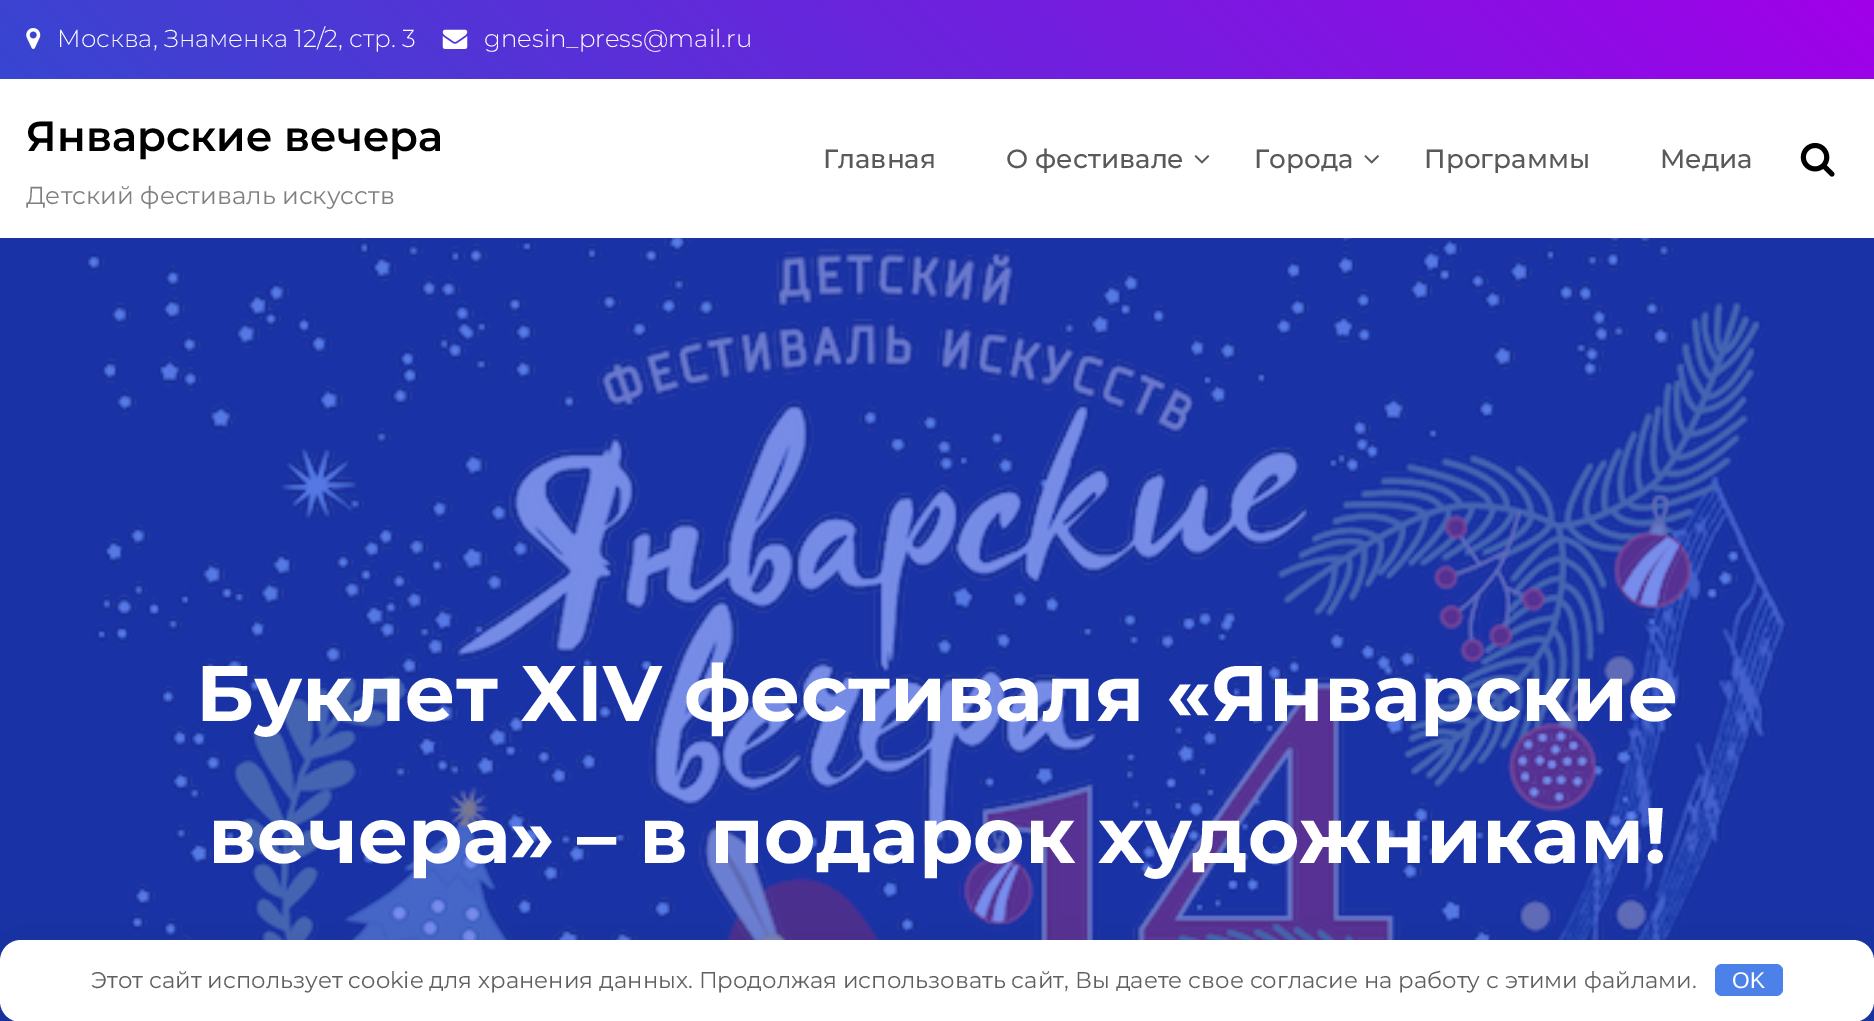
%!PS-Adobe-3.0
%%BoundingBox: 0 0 1874 1021
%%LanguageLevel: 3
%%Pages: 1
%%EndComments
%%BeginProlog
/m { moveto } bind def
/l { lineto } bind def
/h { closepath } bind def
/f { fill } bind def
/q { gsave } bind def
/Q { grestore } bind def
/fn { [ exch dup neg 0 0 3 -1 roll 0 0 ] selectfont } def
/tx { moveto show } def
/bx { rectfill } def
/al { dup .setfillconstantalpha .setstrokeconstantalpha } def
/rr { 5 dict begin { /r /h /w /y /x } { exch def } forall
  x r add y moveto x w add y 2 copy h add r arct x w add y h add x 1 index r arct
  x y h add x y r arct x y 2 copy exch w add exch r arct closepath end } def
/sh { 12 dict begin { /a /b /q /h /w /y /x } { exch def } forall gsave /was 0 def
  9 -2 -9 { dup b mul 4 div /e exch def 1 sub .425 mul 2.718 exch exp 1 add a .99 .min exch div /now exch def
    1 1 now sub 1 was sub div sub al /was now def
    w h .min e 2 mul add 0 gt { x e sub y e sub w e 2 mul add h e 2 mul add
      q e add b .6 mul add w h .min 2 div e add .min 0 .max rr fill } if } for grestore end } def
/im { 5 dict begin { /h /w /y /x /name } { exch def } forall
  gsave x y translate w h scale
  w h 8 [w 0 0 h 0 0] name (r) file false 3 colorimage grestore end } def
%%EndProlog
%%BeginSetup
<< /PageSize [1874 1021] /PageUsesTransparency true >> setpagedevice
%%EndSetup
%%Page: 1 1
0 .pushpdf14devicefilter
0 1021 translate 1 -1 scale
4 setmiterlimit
1 setgray
0 0 1874 1021 bx
q 0 0 m 1874 0 l 1874 79 l 0 79 l h clip newpath
<< /ShadingType 2 /ColorSpace /DeviceRGB /Coords [449 528 1425 -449] /Extend [true true] /Function << /FunctionType 2 /Domain [0 1] /C0 [0.216 0.275 0.816] /C1 [0.631 0 0.914] /N 1 >> >> shfill Q
(image0.raw) 26 28 15 21 im
/Montserrat-Light 24.5 fn
(Москва, Знаменка 12/2, стр. 3) 57 47 tx
(image1.raw) 442 29 26 20 im
(gnesin_press@mail.ru) 484 47 tx
/Montserrat-SemiBold 42 fn
0 setgray
(Январские вечера) 26 151 tx
/Montserrat-Regular 24.5 fn
0.502 setgray
(Детский фестиваль искусств) 26 204 tx
/Montserrat-Medium 26.25 fn
0.349 setgray
(Главная) 823 168 tx
(О фестивале) 1006 168 tx
(image2.raw) 1194 155 16 9 im
(Города) 1254 168 tx
(image3.raw) 1364 155 15 9 im
(Программы) 1424 168 tx
(Медиа) 1660 168 tx
(image4.raw) 1800 142 35 35 im
(image5.raw) 0 238 1874 783 im
/Montserrat-Bold 78.75 fn
1 setgray
(Буклет XIV фестиваля «Январские) 196 721 tx
(вечера» – в подарок художникам!) 208 863 tx
0.161 0.173 0.22 setrgbcolor
9 954 1857 65 12 17.5 0.2 sh
1 setgray
0 940 1874 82 21 rr f
/Montserrat-Regular 22.75 fn
0.373 setgray
(Этот сайт использует cookie для хранения данных. Продолжая использовать сайт, Вы даете свое согласие на работу с этими файлами.) 91 988 tx
0.294 0.506 0.91 setrgbcolor
1715 964 68 32 7 rr f
/LiberationSans-Regular 22.75 fn
1 setgray
(OK) 1732 988 tx
.poppdf14devicefilter showpage
%%EOF
